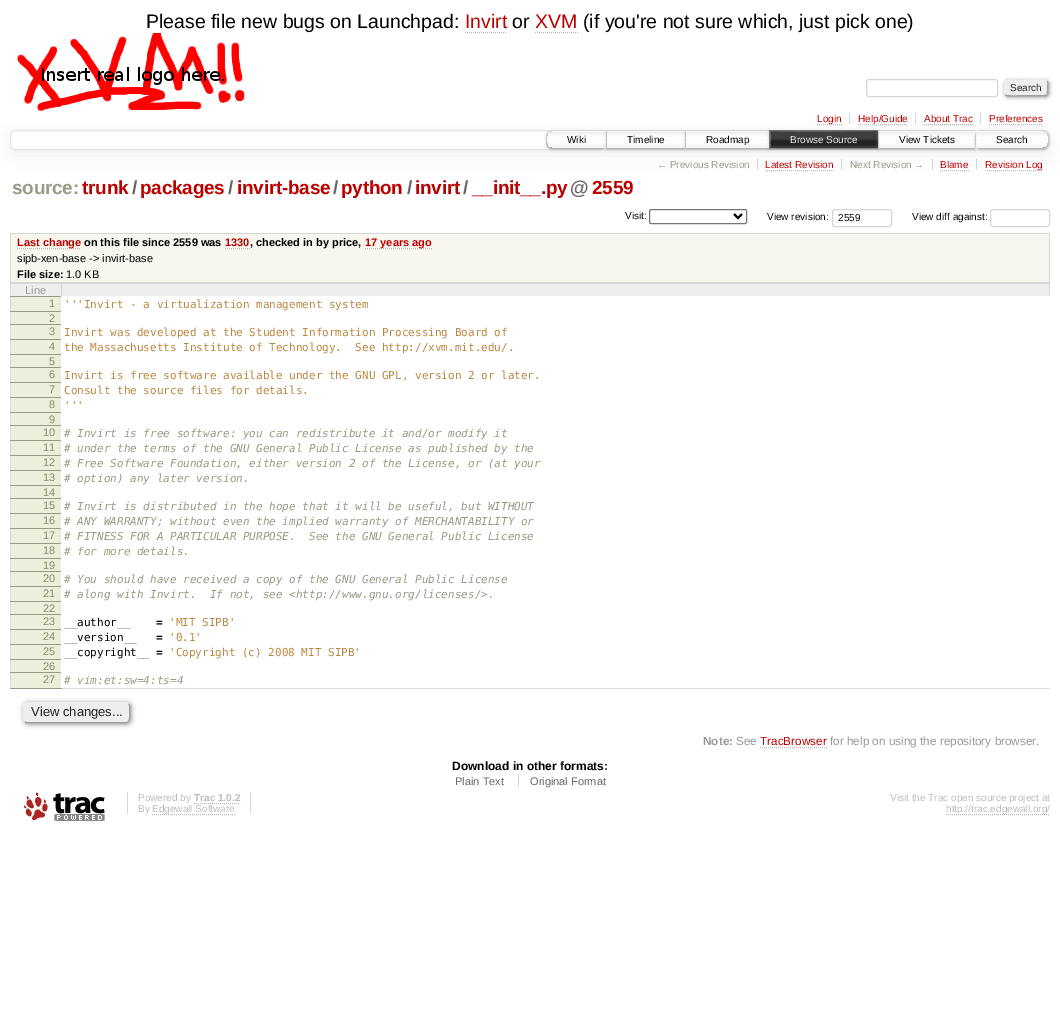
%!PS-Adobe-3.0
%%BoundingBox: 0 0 1060 1018
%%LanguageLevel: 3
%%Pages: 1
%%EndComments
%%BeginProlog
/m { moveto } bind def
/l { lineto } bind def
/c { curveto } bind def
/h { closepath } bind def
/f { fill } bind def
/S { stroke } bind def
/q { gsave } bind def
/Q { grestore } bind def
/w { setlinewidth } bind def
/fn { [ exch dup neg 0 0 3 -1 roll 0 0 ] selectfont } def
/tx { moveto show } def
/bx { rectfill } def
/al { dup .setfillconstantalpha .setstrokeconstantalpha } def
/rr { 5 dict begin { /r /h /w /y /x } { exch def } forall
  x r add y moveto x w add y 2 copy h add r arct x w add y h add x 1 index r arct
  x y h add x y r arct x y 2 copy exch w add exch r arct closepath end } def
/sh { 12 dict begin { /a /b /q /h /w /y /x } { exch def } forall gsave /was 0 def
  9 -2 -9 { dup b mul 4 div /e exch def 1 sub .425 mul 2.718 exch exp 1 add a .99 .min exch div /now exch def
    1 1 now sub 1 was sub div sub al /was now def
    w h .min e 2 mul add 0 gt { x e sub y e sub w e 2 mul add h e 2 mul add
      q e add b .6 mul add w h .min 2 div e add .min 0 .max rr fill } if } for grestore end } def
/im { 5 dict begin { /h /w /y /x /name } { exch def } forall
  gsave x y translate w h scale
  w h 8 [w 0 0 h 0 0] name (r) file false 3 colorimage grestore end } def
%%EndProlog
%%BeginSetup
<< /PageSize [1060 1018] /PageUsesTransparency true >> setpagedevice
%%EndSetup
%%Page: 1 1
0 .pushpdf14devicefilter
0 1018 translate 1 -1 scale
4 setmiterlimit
1 setgray
0 0 1060 1018 bx
/LiberationSans-Regular 19.5 fn
0 setgray
(Please file new bugs on Launchpad:) 146 28 tx
0.733 0 0 setrgbcolor
(Invirt) 465 28 tx
0.733 setgray
[1 1] 0 setdash
465 32.5 m 507 32.5 l S
0 setgray
(or) 512 28 tx
0.733 0 0 setrgbcolor
(XVM) 535 28 tx
0.733 setgray
535 32.5 m 578 32.5 l S
0 setgray
(\(if you're not sure which, just pick one\)) 583 28 tx
(image0.raw) 17 33 228 78 im
0.843 setgray
[] 0 setdash
866.5 79.5 131 17 2.5 rr S
0.533 setgray
1005 81 44 16 3 2 1 sh
0.933 setgray
1004 80 44 16 3 rr f
0.624 setgray
1047 81 m 1048.5 83 1047.5 86 1047.5 88 c 1047.5 96.5 1048 95.5 1038.5 95.5 c 1026 95.5 l 1023 95.5 1007 96.5 1005 95 c S
0.933 setgray
1005 95 m 1003.5 93 1004.5 90 1004.5 88 c 1004.5 79.5 1004 80.5 1013.5 80.5 c 1026 80.5 l 1029 80.5 1045 79.5 1047 81 c S
/LiberationSans-Regular 10 fn
0.133 setgray
(Search) 1010 91 tx
q
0 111 m 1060 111 l 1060 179 l 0 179 l h 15 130 m 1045 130 l 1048 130 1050 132 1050 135 c 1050 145 l 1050 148 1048 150 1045 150 c 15 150 l 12 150 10 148 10 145 c 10 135 l 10 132 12 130 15 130 c h eoclip newpath
0.933 setgray
10 135 1040 20 5 7.5 1 sh
Q
0.843 setgray
849 113 1 11 bx
0.733 setgray
[1 1] 0 setdash
817 124.5 m 842 124.5 l S
0.733 0 0 setrgbcolor
(Login) 817 122 tx
0.843 setgray
915 113 1 11 bx
0.733 setgray
858 124.5 m 908 124.5 l S
0.733 0 0 setrgbcolor
(Help/Guide) 858 122 tx
0.843 setgray
980 113 1 11 bx
0.733 0 0 setrgbcolor
(About Trac) 924 122 tx
0.733 setgray
924 124.5 m 973 124.5 l S
0.733 0 0 setrgbcolor
(Preferences) 989 122 tx
0.733 setgray
989 124.5 m 1043 124.5 l S
0.894 setgray
[] 0 setdash
10.5 130.5 1039 19 4.5 rr S
1 setgray
551 130 m 607 130 l 607 149 l 551 149 l 548 149 546 147 546 144 c 546 135 l 546 132 548 130 551 130 c h f
(image1.raw) 546 132 60 17 im
0.894 setgray
551 130.5 m 606.5 130.5 l 606.5 148.5 l 551 148.5 l 548.5 148.5 546.5 146.5 546.5 144 c 546.5 135 l 546.5 132.5 548.5 130.5 551 130.5 c h S
q
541 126 m 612 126 l 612 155 l 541 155 l h 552 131 m 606 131 l 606 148 l 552 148 l 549 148 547 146 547 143 c 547 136 l 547 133 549 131 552 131 c h eoclip newpath
0.6 setgray
547 132 59 17 5 1.5 1 sh
Q
0 setgray
(Wiki) 567 143 tx
1 setgray
607 133 2 15 bx
(image2.raw) 607 132 78 16 im
0.894 setgray
606.5 130.5 79 18 rectstroke
q
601 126 m 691 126 l 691 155 l 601 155 l h 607 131 m 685 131 l 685 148 l 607 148 l h eoclip newpath
0.6 setgray
607 132 78 17 0 1.5 1 sh
Q
0 setgray
(Timeline) 627 143 tx
1 setgray
686 131 2 17 bx
(image3.raw) 686 132 83 16 im
0.894 setgray
685.5 130.5 84 18 rectstroke
q
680 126 m 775 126 l 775 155 l 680 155 l h 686 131 m 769 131 l 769 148 l 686 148 l h eoclip newpath
0.6 setgray
686 132 83 17 0 1.5 1 sh
Q
0 setgray
(Roadmap) 706 143 tx
0.4 setgray
769.5 130.5 109 18 rectstroke
0.6 setgray
770 132 108 17 0 1.5 1 sh
0 setgray
770 131 108 17 bx
(image4.raw) 770 131 108 17 im
0.933 setgray
(Browse Source) 790 143 tx
1 setgray
879 131 2 17 bx
(image5.raw) 879 132 96 16 im
0.894 setgray
878.5 130.5 97 18 rectstroke
q
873 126 m 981 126 l 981 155 l 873 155 l h 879 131 m 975 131 l 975 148 l 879 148 l h eoclip newpath
0.6 setgray
879 132 96 17 0 1.5 1 sh
Q
0 setgray
(View Tickets) 899 143 tx
1 setgray
975 130 m 1044 130 l 1047 130 1049 132 1049 135 c 1049 144 l 1049 147 1047 149 1044 149 c 975 149 l h f
(image6.raw) 976 132 73 17 im
0.894 setgray
975.5 130.5 m 1044 130.5 l 1046.5 130.5 1048.5 132.5 1048.5 135 c 1048.5 144 l 1048.5 146.5 1046.5 148.5 1044 148.5 c 975.5 148.5 l h S
q
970 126 m 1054 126 l 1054 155 l 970 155 l h 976 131 m 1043 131 l 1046 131 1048 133 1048 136 c 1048 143 l 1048 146 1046 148 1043 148 c 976 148 l h eoclip newpath
0.6 setgray
976 132 72 17 5 1.5 1 sh
Q
0 setgray
(Search) 996 143 tx
0.843 setgray
757 159 1 11 bx
0.6 0.6 0.533 setrgbcolor
(← Previous Revision) 657 168 tx
0.843 setgray
841 159 1 11 bx
0.733 0 0 setrgbcolor
(Latest Revision) 765 168 tx
0.733 setgray
[1 1] 0 setdash
765 170.5 m 834 170.5 l S
0.843 setgray
932 159 1 11 bx
0.6 0.6 0.533 setrgbcolor
(Next Revision →) 850 168 tx
0.843 setgray
976 159 1 11 bx
0.733 0 0 setrgbcolor
(Blame) 940 168 tx
0.733 setgray
940 170.5 m 969 170.5 l S
985 170.5 m 1043 170.5 l S
0.733 0 0 setrgbcolor
(Revision Log) 985 168 tx
/LiberationSans-Bold 19 fn
0.6 0.6 0.533 setrgbcolor
12 194 m -0.25 0 (source:) ashow
0.733 0 0 setrgbcolor
82 194 m -0.25 0 (trunk) ashow
0.4 setgray
132 194 m -0.25 0 (/) ashow
0.733 0 0 setrgbcolor
140 194 m -0.25 0 (packages) ashow
0.4 setgray
228 194 m -0.25 0 (/) ashow
0.733 0 0 setrgbcolor
237 194 m -0.25 0 (invirt-base) ashow
0.4 setgray
333 194 m -0.25 0 (/) ashow
0.733 0 0 setrgbcolor
341 194 m -0.25 0 (python) ashow
0.4 setgray
407 194 m -0.25 0 (/) ashow
0.733 0 0 setrgbcolor
415 194 m -0.25 0 (invirt) ashow
0.4 setgray
463 194 m -0.25 0 (/) ashow
0.733 0 0 setrgbcolor
472 194 m -0.25 0 (__init__.py) ashow
0.4 setgray
570 194 m -0.25 0 (@) ashow
0.733 0 0 setrgbcolor
592 194 m -0.25 0 (2559) ashow
/LiberationSans-Regular 10 fn
0 setgray
(Visit:) 625 219 tx
0.463 setgray
[] 0 setdash
649.5 209.5 97 14 1.5 rr S
0 setgray
2 w
734 214 m 738 218 l 742 214 l S
(View revision:) 767 220 tx
0.843 setgray
1 w
832.5 209.5 59 17 2.5 rr S
0 setgray
(2559) 838 221 tx
(View diff against:) 912 220 tx
0.843 setgray
990.5 209.5 59 17 2.5 rr S
0.969 0.969 0.941 setrgbcolor
11 234 1038 48 bx
0.843 setgray
10 233 1040 1 bx
1049 233 1 50 bx
10 282 1040 1 bx
10 233 1 50 bx
0.733 setgray
[1 1] 0 setdash
17 248.5 m 81 248.5 l S
/LiberationSans-Bold 11 fn
0.733 0 0 setrgbcolor
(Last change) 17 246 tx
0 setgray
(on this file since 2559 was) 84 246 tx
0.733 0 0 setrgbcolor
(1330) 225 246 tx
0.733 setgray
225 248.5 m 250 248.5 l S
0 setgray
(, checked in by price,) 250 246 tx
0.733 setgray
365 248.5 m 432 248.5 l S
0.733 0 0 setrgbcolor
(17 years ago) 365 246 tx
/LiberationSans-Regular 11 fn
0 setgray
(sipb-xen-base -> invirt-base) 17 262 tx
/LiberationSans-Bold 11 fn
(File size:) 17 278 tx
/LiberationSans-Regular 11 fn
(1.0 KB) 66 278 tx
0.867 setgray
62 688 988 1 bx
10 283 1 406 bx
0.933 setgray
62 284 987 12 bx
0.843 setgray
10 283 1040 1 bx
1049 283 1 14 bx
0.933 setgray
11 284 50 12 bx
0.843 setgray
61 283 1 14 bx
0.6 0.6 0.533 setrgbcolor
10 296 52 1 bx
0.6 setgray
(Line) 25 294 tx
0.933 0.933 0.867 setrgbcolor
11 297 50 14 bx
0.6 0.6 0.533 setrgbcolor
10 311 52 1 bx
0.533 0.533 0.4 setrgbcolor
(1) 49 307 tx
1 setgray
61 296 989 16 bx
/DejaVuSansMono-Regular 11 fn
0.733 0.533 0.267 setrgbcolor
('''Invirt - a virtualization management system) 64 308 tx
0.933 0.933 0.867 setrgbcolor
11 312 50 12 bx
0.6 0.6 0.533 setrgbcolor
10 324 52 1 bx
/LiberationSans-Regular 11 fn
0.533 0.533 0.4 setrgbcolor
(2) 49 322 tx
1 setgray
61 324 1 1 bx
0.933 0.933 0.867 setrgbcolor
11 325 50 14 bx
0.6 0.6 0.533 setrgbcolor
10 339 52 1 bx
0.533 0.533 0.4 setrgbcolor
(3) 49 335 tx
1 setgray
61 339 1 1 bx
/DejaVuSansMono-Regular 11 fn
0.733 0.533 0.267 setrgbcolor
(Invirt was developed at the Student Information Processing Board of) 64 336 tx
0.933 0.933 0.867 setrgbcolor
11 340 50 14 bx
0.6 0.6 0.533 setrgbcolor
10 354 52 1 bx
/LiberationSans-Regular 11 fn
0.533 0.533 0.4 setrgbcolor
(4) 49 350 tx
1 setgray
61 354 1 1 bx
/DejaVuSansMono-Regular 11 fn
0.733 0.533 0.267 setrgbcolor
(the Massachusetts Institute of Technology.  See http://xvm.mit.edu/.) 64 351 tx
0.933 0.933 0.867 setrgbcolor
11 355 50 12 bx
0.6 0.6 0.533 setrgbcolor
10 367 52 1 bx
/LiberationSans-Regular 11 fn
0.533 0.533 0.4 setrgbcolor
(5) 49 365 tx
1 setgray
61 367 1 1 bx
0.933 0.933 0.867 setrgbcolor
11 368 50 14 bx
0.6 0.6 0.533 setrgbcolor
10 382 52 1 bx
0.533 0.533 0.4 setrgbcolor
(6) 49 378 tx
1 setgray
61 382 1 1 bx
/DejaVuSansMono-Regular 11 fn
0.733 0.533 0.267 setrgbcolor
(Invirt is free software available under the GNU GPL, version 2 or later.) 64 379 tx
0.933 0.933 0.867 setrgbcolor
11 383 50 14 bx
0.6 0.6 0.533 setrgbcolor
10 397 52 1 bx
/LiberationSans-Regular 11 fn
0.533 0.533 0.4 setrgbcolor
(7) 49 393 tx
1 setgray
61 397 1 1 bx
/DejaVuSansMono-Regular 11 fn
0.733 0.533 0.267 setrgbcolor
(Consult the source files for details.) 64 394 tx
0.933 0.933 0.867 setrgbcolor
11 398 50 14 bx
0.6 0.6 0.533 setrgbcolor
10 412 52 1 bx
/LiberationSans-Regular 11 fn
0.533 0.533 0.4 setrgbcolor
(8) 49 408 tx
1 setgray
61 412 1 1 bx
/DejaVuSansMono-Regular 11 fn
0.733 0.533 0.267 setrgbcolor
(''') 64 409 tx
0.933 0.933 0.867 setrgbcolor
11 413 50 12 bx
0.6 0.6 0.533 setrgbcolor
10 425 52 1 bx
/LiberationSans-Regular 11 fn
0.533 0.533 0.4 setrgbcolor
(9) 49 423 tx
1 setgray
61 425 1 1 bx
0.933 0.933 0.867 setrgbcolor
11 426 50 14 bx
0.6 0.6 0.533 setrgbcolor
10 440 52 1 bx
0.533 0.533 0.4 setrgbcolor
(10) 43 436 tx
1 setgray
61 440 1 1 bx
/DejaVuSansMono-Italic 11 fn
0.6 0.6 0.533 setrgbcolor
(# Invirt is free software: you can redistribute it and/or modify it) 64 437 tx
0.933 0.933 0.867 setrgbcolor
11 441 50 14 bx
0.6 0.6 0.533 setrgbcolor
10 455 52 1 bx
/LiberationSans-Regular 11 fn
0.533 0.533 0.4 setrgbcolor
(11) 43 451 tx
1 setgray
61 455 1 1 bx
/DejaVuSansMono-Italic 11 fn
0.6 0.6 0.533 setrgbcolor
(# under the terms of the GNU General Public License as published by the) 64 452 tx
0.933 0.933 0.867 setrgbcolor
11 456 50 14 bx
0.6 0.6 0.533 setrgbcolor
10 470 52 1 bx
/LiberationSans-Regular 11 fn
0.533 0.533 0.4 setrgbcolor
(12) 43 466 tx
1 setgray
61 470 1 1 bx
/DejaVuSansMono-Italic 11 fn
0.6 0.6 0.533 setrgbcolor
(# Free Software Foundation, either version 2 of the License, or \(at your) 64 467 tx
0.933 0.933 0.867 setrgbcolor
11 471 50 14 bx
0.6 0.6 0.533 setrgbcolor
10 485 52 1 bx
/LiberationSans-Regular 11 fn
0.533 0.533 0.4 setrgbcolor
(13) 43 481 tx
1 setgray
61 485 1 1 bx
/DejaVuSansMono-Italic 11 fn
0.6 0.6 0.533 setrgbcolor
(# option\) any later version.) 64 482 tx
0.933 0.933 0.867 setrgbcolor
11 486 50 12 bx
0.6 0.6 0.533 setrgbcolor
10 498 52 1 bx
/LiberationSans-Regular 11 fn
0.533 0.533 0.4 setrgbcolor
(14) 43 496 tx
1 setgray
61 498 1 1 bx
0.933 0.933 0.867 setrgbcolor
11 499 50 14 bx
0.6 0.6 0.533 setrgbcolor
10 513 52 1 bx
0.533 0.533 0.4 setrgbcolor
(15) 43 509 tx
1 setgray
61 513 1 1 bx
/DejaVuSansMono-Italic 11 fn
0.6 0.6 0.533 setrgbcolor
(# Invirt is distributed in the hope that it will be useful, but WITHOUT) 64 510 tx
0.933 0.933 0.867 setrgbcolor
11 514 50 14 bx
0.6 0.6 0.533 setrgbcolor
10 528 52 1 bx
/LiberationSans-Regular 11 fn
0.533 0.533 0.4 setrgbcolor
(16) 43 524 tx
1 setgray
61 528 1 1 bx
/DejaVuSansMono-Italic 11 fn
0.6 0.6 0.533 setrgbcolor
(# ANY WARRANTY; without even the implied warranty of MERCHANTABILITY or) 64 525 tx
0.933 0.933 0.867 setrgbcolor
11 529 50 14 bx
0.6 0.6 0.533 setrgbcolor
10 543 52 1 bx
/LiberationSans-Regular 11 fn
0.533 0.533 0.4 setrgbcolor
(17) 43 539 tx
1 setgray
61 543 1 1 bx
/DejaVuSansMono-Italic 11 fn
0.6 0.6 0.533 setrgbcolor
(# FITNESS FOR A PARTICULAR PURPOSE.  See the GNU General Public License) 64 540 tx
0.933 0.933 0.867 setrgbcolor
11 544 50 14 bx
0.6 0.6 0.533 setrgbcolor
10 558 52 1 bx
/LiberationSans-Regular 11 fn
0.533 0.533 0.4 setrgbcolor
(18) 43 554 tx
1 setgray
61 558 1 1 bx
/DejaVuSansMono-Italic 11 fn
0.6 0.6 0.533 setrgbcolor
(# for more details.) 64 555 tx
0.933 0.933 0.867 setrgbcolor
11 559 50 12 bx
0.6 0.6 0.533 setrgbcolor
10 571 52 1 bx
/LiberationSans-Regular 11 fn
0.533 0.533 0.4 setrgbcolor
(19) 43 569 tx
1 setgray
61 571 1 1 bx
0.933 0.933 0.867 setrgbcolor
11 572 50 14 bx
0.6 0.6 0.533 setrgbcolor
10 586 52 1 bx
0.533 0.533 0.4 setrgbcolor
(20) 43 582 tx
1 setgray
61 586 1 1 bx
/DejaVuSansMono-Italic 11 fn
0.6 0.6 0.533 setrgbcolor
(# You should have received a copy of the GNU General Public License) 64 583 tx
0.933 0.933 0.867 setrgbcolor
11 587 50 14 bx
0.6 0.6 0.533 setrgbcolor
10 601 52 1 bx
/LiberationSans-Regular 11 fn
0.533 0.533 0.4 setrgbcolor
(21) 43 597 tx
1 setgray
61 601 1 1 bx
/DejaVuSansMono-Italic 11 fn
0.6 0.6 0.533 setrgbcolor
(# along with Invirt.  If not, see <http://www.gnu.org/licenses/>.) 64 598 tx
0.933 0.933 0.867 setrgbcolor
11 602 50 12 bx
0.6 0.6 0.533 setrgbcolor
10 614 52 1 bx
/LiberationSans-Regular 11 fn
0.533 0.533 0.4 setrgbcolor
(22) 43 612 tx
1 setgray
61 614 1 1 bx
0.933 0.933 0.867 setrgbcolor
11 615 50 14 bx
0.6 0.6 0.533 setrgbcolor
10 629 52 1 bx
0.533 0.533 0.4 setrgbcolor
(23) 43 625 tx
1 setgray
61 629 1 1 bx
/DejaVuSansMono-Regular 11 fn
0 setgray
(__author__) 64 626 tx
/DejaVuSansMono-Bold 11 fn
(=) 156 626 tx
/DejaVuSansMono-Regular 11 fn
0.733 0.533 0.267 setrgbcolor
('MIT SIPB') 169 626 tx
0.933 0.933 0.867 setrgbcolor
11 630 50 14 bx
0.6 0.6 0.533 setrgbcolor
10 644 52 1 bx
/LiberationSans-Regular 11 fn
0.533 0.533 0.4 setrgbcolor
(24) 43 640 tx
1 setgray
61 644 1 1 bx
/DejaVuSansMono-Regular 11 fn
0 setgray
(__version__) 64 641 tx
/DejaVuSansMono-Bold 11 fn
(=) 156 641 tx
/DejaVuSansMono-Regular 11 fn
0.733 0.533 0.267 setrgbcolor
('0.1') 169 641 tx
0.933 0.933 0.867 setrgbcolor
11 645 50 14 bx
0.6 0.6 0.533 setrgbcolor
10 659 52 1 bx
/LiberationSans-Regular 11 fn
0.533 0.533 0.4 setrgbcolor
(25) 43 655 tx
1 setgray
61 659 1 1 bx
/DejaVuSansMono-Regular 11 fn
0 setgray
(__copyright__) 64 656 tx
/DejaVuSansMono-Bold 11 fn
(=) 156 656 tx
/DejaVuSansMono-Regular 11 fn
0.733 0.533 0.267 setrgbcolor
('Copyright \(c\) 2008 MIT SIPB') 169 656 tx
0.933 0.933 0.867 setrgbcolor
11 660 50 12 bx
0.6 0.6 0.533 setrgbcolor
10 672 52 1 bx
/LiberationSans-Regular 11 fn
0.533 0.533 0.4 setrgbcolor
(26) 43 670 tx
1 setgray
61 672 1 1 bx
0.933 0.933 0.867 setrgbcolor
11 673 50 15 bx
0.6 0.6 0.533 setrgbcolor
10 688 52 1 bx
0.533 0.533 0.4 setrgbcolor
(27) 43 683 tx
/DejaVuSansMono-Italic 11 fn
0.6 0.6 0.533 setrgbcolor
(# vim:et:sw=4:ts=4) 64 684 tx
0.533 setgray
24 703 107 21 4 2.5 1 sh
0.933 setgray
23 702 107 21 4 rr f
0.624 setgray
[] 0 setdash
128.5 703.5 m 130.5 705.5 129.5 712 129.5 714.5 c 129.5 717.5 130.5 722.5 126 722.5 c 26 722.5 l 24.5 721.5 l S
0.933 setgray
24.5 721.5 m 22.5 719.5 23.5 713 23.5 710.5 c 23.5 707.5 22.5 702.5 27 702.5 c 127 702.5 l 128.5 703.5 l S
/LiberationSans-Regular 13 fn
0.133 setgray
(View changes...) 31 716 tx
/LiberationSans-Bold 11.75 fn
0.6 setgray
(Note:) 703 745 tx
/LiberationSans-Regular 11.75 fn
(See) 736 745 tx
0.733 0 0 setrgbcolor
(TracBrowser) 760 745 tx
0.733 setgray
[1 1] 0 setdash
760 747.5 m 827 747.5 l S
0.6 setgray
(for help on using the repository browser.) 830 745 tx
/LiberationSans-Bold 12 fn
0 setgray
(Download in other formats:) 452 770 tx
/LiberationSans-Regular 11 fn
0.4 setgray
(Plain Text) 455 785 tx
0.843 setgray
518 775 1 12 bx
0.4 setgray
(Original Format) 530 785 tx
(image7.raw) 24 792 81 29 im
0.843 setgray
250 792 1 22 bx
127 792 1 22 bx
/LiberationSans-Regular 10 fn
0.733 setgray
(Powered by) 138 801 tx
/LiberationSans-Bold 10 fn
(Trac 1.0.2) 194 801 tx
194 803.5 m 240 803.5 l S
/LiberationSans-Regular 10 fn
(By) 138 812 tx
152 814.5 m 235 814.5 l S
(Edgewall Software.) 152 812 tx
(Visit the Trac open source project at) 890 801 tx
946 814.5 m 1050 814.5 l S
(http://trac.edgewall.org/) 946 812 tx
.poppdf14devicefilter showpage
%%EOF
